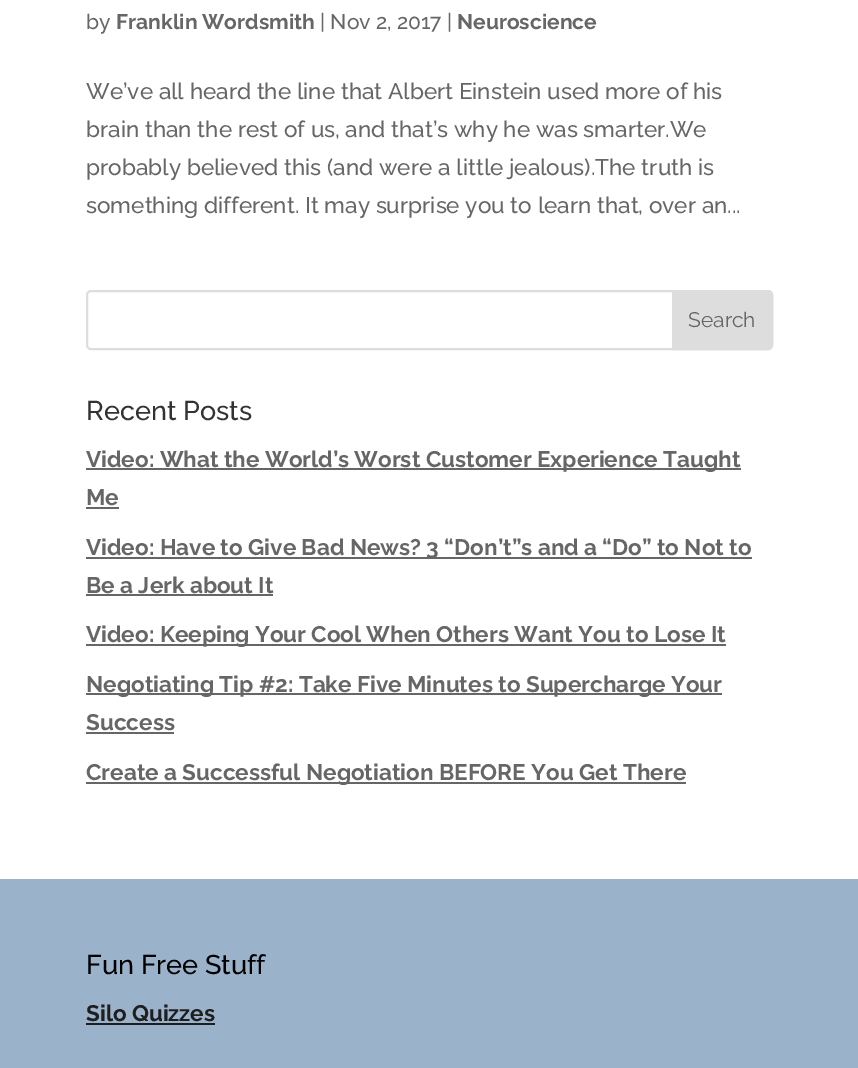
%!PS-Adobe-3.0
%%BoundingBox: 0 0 858 1068
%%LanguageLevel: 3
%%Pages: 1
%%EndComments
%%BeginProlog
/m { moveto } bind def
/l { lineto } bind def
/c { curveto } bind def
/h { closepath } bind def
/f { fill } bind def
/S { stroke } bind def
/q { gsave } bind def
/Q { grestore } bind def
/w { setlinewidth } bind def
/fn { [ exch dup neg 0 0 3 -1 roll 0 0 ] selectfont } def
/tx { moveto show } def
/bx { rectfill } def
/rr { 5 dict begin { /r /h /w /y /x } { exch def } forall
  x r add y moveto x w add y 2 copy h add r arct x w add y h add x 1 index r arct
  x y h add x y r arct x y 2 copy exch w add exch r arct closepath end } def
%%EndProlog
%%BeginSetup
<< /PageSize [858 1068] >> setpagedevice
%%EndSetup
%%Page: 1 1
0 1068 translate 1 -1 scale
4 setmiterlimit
1 setgray
0 0 858 1068 bx
/Raleway-Thin 21 fn
0.4 setgray
(by) 86 29 tx
/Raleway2-Thin 21 fn
(Franklin Wordsmith) 116 29 tx
/Raleway-Thin 21 fn
(| Nov 2, 2017 |) 320 29 tx
/Raleway2-Thin 21 fn
(Neuroscience) 457 29 tx
/Raleway-Thin 22.5 fn
(We’ve all heard the line that Albert Einstein used more of his) 86 99 tx
(brain than the rest of us, and that’s why he was smarter.We) 86 137 tx
(probably believed this \(and were a little jealous\).The truth is) 86 175 tx
(something different. It may surprise you to learn that, over an...) 86 213 tx
0.867 setgray
2 w
87 291 685 58 4 rr S
673 291 m 768 291 l 770 291 772 293 772 295 c 772 345 l 772 347 770 349 768 349 c 673 349 l h q f Q
S
/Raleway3-Thin 21 fn
0.4 setgray
(Search) 688 327 tx
/Raleway-Thin 27 fn
0.2 setgray
(Recent Posts) 86 420 tx
0.4 setgray
86 468 655 2 bx
/Raleway2-Thin 22.5 fn
(Video: What the World’s Worst Customer Experience Taught) 86 467 tx
(Me) 86 505 tx
86 507 33 2 bx
86 557 666 2 bx
(Video: Have to Give Bad News? 3 “Don’t”s and a “Do” to Not to) 86 555 tx
(Be a Jerk about It) 86 593 tx
86 594 187 2 bx
86 644 640 2 bx
(Video: Keeping Your Cool When Others Want You to Lose It) 86 642 tx
86 693 636 2 bx
(Negotiating Tip #2: Take Five Minutes to Supercharge Your) 86 692 tx
(Success) 86 730 tx
86 732 88 2 bx
86 782 600 2 bx
(Create a Successful Negotiation BEFORE You Get There) 86 780 tx
0.608 0.698 0.796 setrgbcolor
0 879 858 189 bx
/Raleway-Thin 27 fn
0 setgray
(Fun Free Stuff) 86 974 tx
/Raleway2-Thin 22.5 fn
0.118 setgray
(Silo Quizzes) 86 1021 tx
86 1023 129 2 bx
showpage
%%EOF
